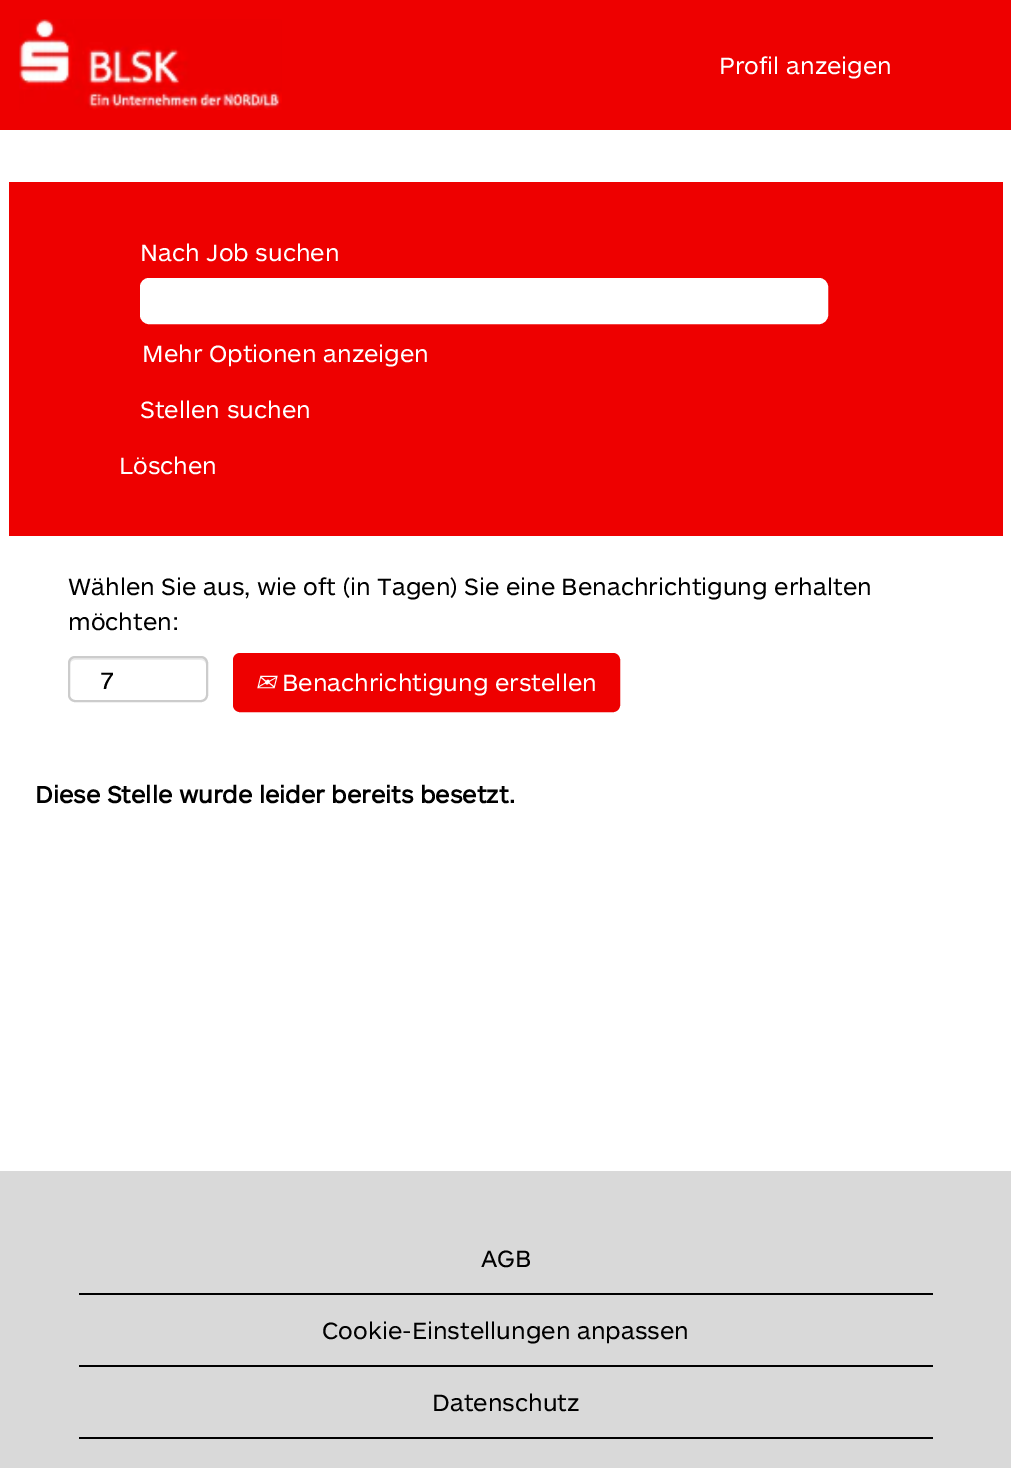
%!PS-Adobe-3.0
%%BoundingBox: 0 0 1011 1468
%%LanguageLevel: 3
%%Pages: 1
%%EndComments
%%BeginProlog
/m { moveto } bind def
/l { lineto } bind def
/c { curveto } bind def
/h { closepath } bind def
/f { fill } bind def
/S { stroke } bind def
/q { gsave } bind def
/Q { grestore } bind def
/w { setlinewidth } bind def
/fn { [ exch dup neg 0 0 3 -1 roll 0 0 ] selectfont } def
/tx { moveto show } def
/bx { rectfill } def
/rr { 5 dict begin { /r /h /w /y /x } { exch def } forall
  x r add y moveto x w add y 2 copy h add r arct x w add y h add x 1 index r arct
  x y h add x y r arct x y 2 copy exch w add exch r arct closepath end } def
/im { 5 dict begin { /h /w /y /x /name } { exch def } forall
  gsave x y translate w h scale
  w h 8 [w 0 0 h 0 0] name (r) file false 3 colorimage grestore end } def
%%EndProlog
%%BeginSetup
<< /PageSize [1011 1468] >> setpagedevice
%%EndSetup
%%Page: 1 1
0 1468 translate 1 -1 scale
4 setmiterlimit
1 setgray
0 0 1011 1468 bx
0.933 0 0 setrgbcolor
0 0 1011 130 bx
(image0.raw) 19 19 263 91 im
/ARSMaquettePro-Regular 24.5 fn
1 setgray
(Profil anzeigen) 719 74 tx
0.933 0 0 setrgbcolor
9 182 994 354 bx
1 setgray
(Nach Job suchen) 140 261 tx
142 280 684 42 7 rr q f Q
4 w
S
(Mehr Optionen anzeigen) 142 362 tx
(Stellen suchen) 140 418 tx
(Löschen) 119 474 tx
0 setgray
(Wählen Sie aus, wie oft \(in Tagen\) Sie eine Benachrichtigung erhalten) 68 595 tx
(möchten:) 68 630 tx
0.925 setgray
75 660 m 201 660 l 204 660 206 662 206 665 c 206 696 l 206 699 l 206 698 207 696 207 695 c 207 663 l 207 660 205 658 202 658 c 75 658 l 72 658 70 660 70 663 c 70 665 l 70 662 72 660 75 660 c h f
0.8 setgray
2 w
69 657 138 44 6 rr S
0 setgray
(7) 100 689 tx
0.933 0 0 setrgbcolor
234 654 385 57 6 rr q f Q
S
/DejaVuSans-Italic 24.5 fn
1 setgray
(✉) 255 691 tx
/ARSMaquettePro-Regular 24.5 fn
(Benachrichtigung erstellen) 282 691 tx
/ARSMaquettePro-Bold 24.5 fn
0 setgray
(Diese Stelle wurde leider bereits besetzt.) 35 803 tx
0.851 setgray
0 1171 1011 297 bx
0 setgray
79 1293 854 2 bx
/ARSMaquettePro-Regular 24.5 fn
(AGB) 481 1267 tx
79 1365 854 2 bx
(Cookie-Einstellungen anpassen) 322 1339 tx
79 1437 854 2 bx
(Datenschutz) 432 1411 tx
showpage
%%EOF
